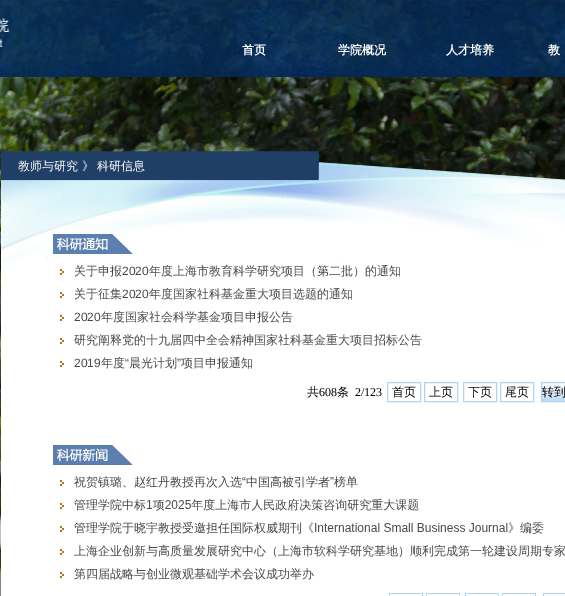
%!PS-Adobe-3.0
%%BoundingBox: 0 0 565 596
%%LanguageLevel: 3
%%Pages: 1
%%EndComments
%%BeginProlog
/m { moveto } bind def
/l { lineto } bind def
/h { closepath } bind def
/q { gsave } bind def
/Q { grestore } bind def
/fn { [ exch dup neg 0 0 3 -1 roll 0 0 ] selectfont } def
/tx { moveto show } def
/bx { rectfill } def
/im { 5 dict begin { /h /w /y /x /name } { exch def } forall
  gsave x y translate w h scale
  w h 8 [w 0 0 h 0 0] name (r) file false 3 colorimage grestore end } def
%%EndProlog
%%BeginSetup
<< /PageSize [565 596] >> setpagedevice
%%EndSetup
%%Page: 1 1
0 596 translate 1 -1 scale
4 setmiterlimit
1 setgray
0 0 565 596 bx
(image0.raw) 0 0 565 596 im
(image1.raw) 0 0 565 77 im
/WenQuanYiZenHei-Bold 12 fn
(首页) 242 54 tx
(学院概况) 338 54 tx
(人才培养) 446 54 tx
(教) 548 54 tx
(image2.raw) 0 151 565 445 im
/WenQuanYiZenHei-Medium 12 fn
(教师与研究 》 科研信息) 18 170 tx
(image3.raw) 53 234 80 20 im
(image4.raw) 60 269 4 6 im
0.29 0.286 0.286 setrgbcolor
(关于申报) 74 275 tx
/LiberationSans-Regular 12 fn
(2020) 122 275 tx
/WenQuanYiZenHei-Medium 12 fn
(年度上海市教育科学研究项目（第二批）的通知) 149 275 tx
(image4.raw) 60 292 4 6 im
(关于征集) 74 298 tx
/LiberationSans-Regular 12 fn
(2020) 122 298 tx
/WenQuanYiZenHei-Medium 12 fn
(年度国家社科基金重大项目选题的通知) 149 298 tx
(image4.raw) 60 315 4 6 im
/LiberationSans-Regular 12 fn
(2020) 74 321 tx
/WenQuanYiZenHei-Medium 12 fn
(年度国家社会科学基金项目申报公告) 101 321 tx
(image4.raw) 60 338 4 6 im
(研究阐释党的十九届四中全会精神国家社科基金重大项目招标公告) 74 344 tx
(image4.raw) 60 361 4 6 im
/LiberationSans-Regular 12 fn
(2019) 74 367 tx
/WenQuanYiZenHei-Medium 12 fn
(年度) 101 367 tx
/LiberationSans-Regular 12 fn
(“) 125 367 tx
/WenQuanYiZenHei-Medium 12 fn
(晨光计划) 129 367 tx
/LiberationSans-Regular 12 fn
(”) 177 367 tx
/WenQuanYiZenHei-Medium 12 fn
(项目申报通知) 181 367 tx
0 setgray
(共) 307 396 tx
/LiberationSerif-Regular 12 fn
(608) 319 396 tx
/WenQuanYiZenHei-Medium 12 fn
(条) 337 396 tx
/LiberationSerif-Regular 12 fn
(2/123) 355 396 tx
0.686 0.835 0.961 setrgbcolor
387.5 382.5 33 19 rectstroke
/WenQuanYiZenHei-Medium 12 fn
0 setgray
(首页) 392 396 tx
0.686 0.835 0.961 setrgbcolor
424.5 382.5 33 19 rectstroke
0 setgray
(上页) 429 396 tx
0.686 0.835 0.961 setrgbcolor
463.5 382.5 33 19 rectstroke
0 setgray
(下页) 468 396 tx
0.686 0.835 0.961 setrgbcolor
500.5 382.5 33 19 rectstroke
0 setgray
(尾页) 505 396 tx
q 542 384 m 565 384 l 565 401 l 542 401 l h clip newpath
<< /ShadingType 2 /ColorSpace /DeviceRGB /Coords [542 383 542 401] /Extend [true true] /Function << /FunctionType 2 /Domain [0 1] /C0 [1 1 1] /C1 [0.741 0.859 0.969] /N 1 >> >> shfill Q
0.686 0.835 0.961 setrgbcolor
541.5 382.5 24 19 rectstroke
0 setgray
(转到) 542 396 tx
(image5.raw) 53 445 80 20 im
(image6.raw) 60 475 505 121 im
showpage
%%EOF
